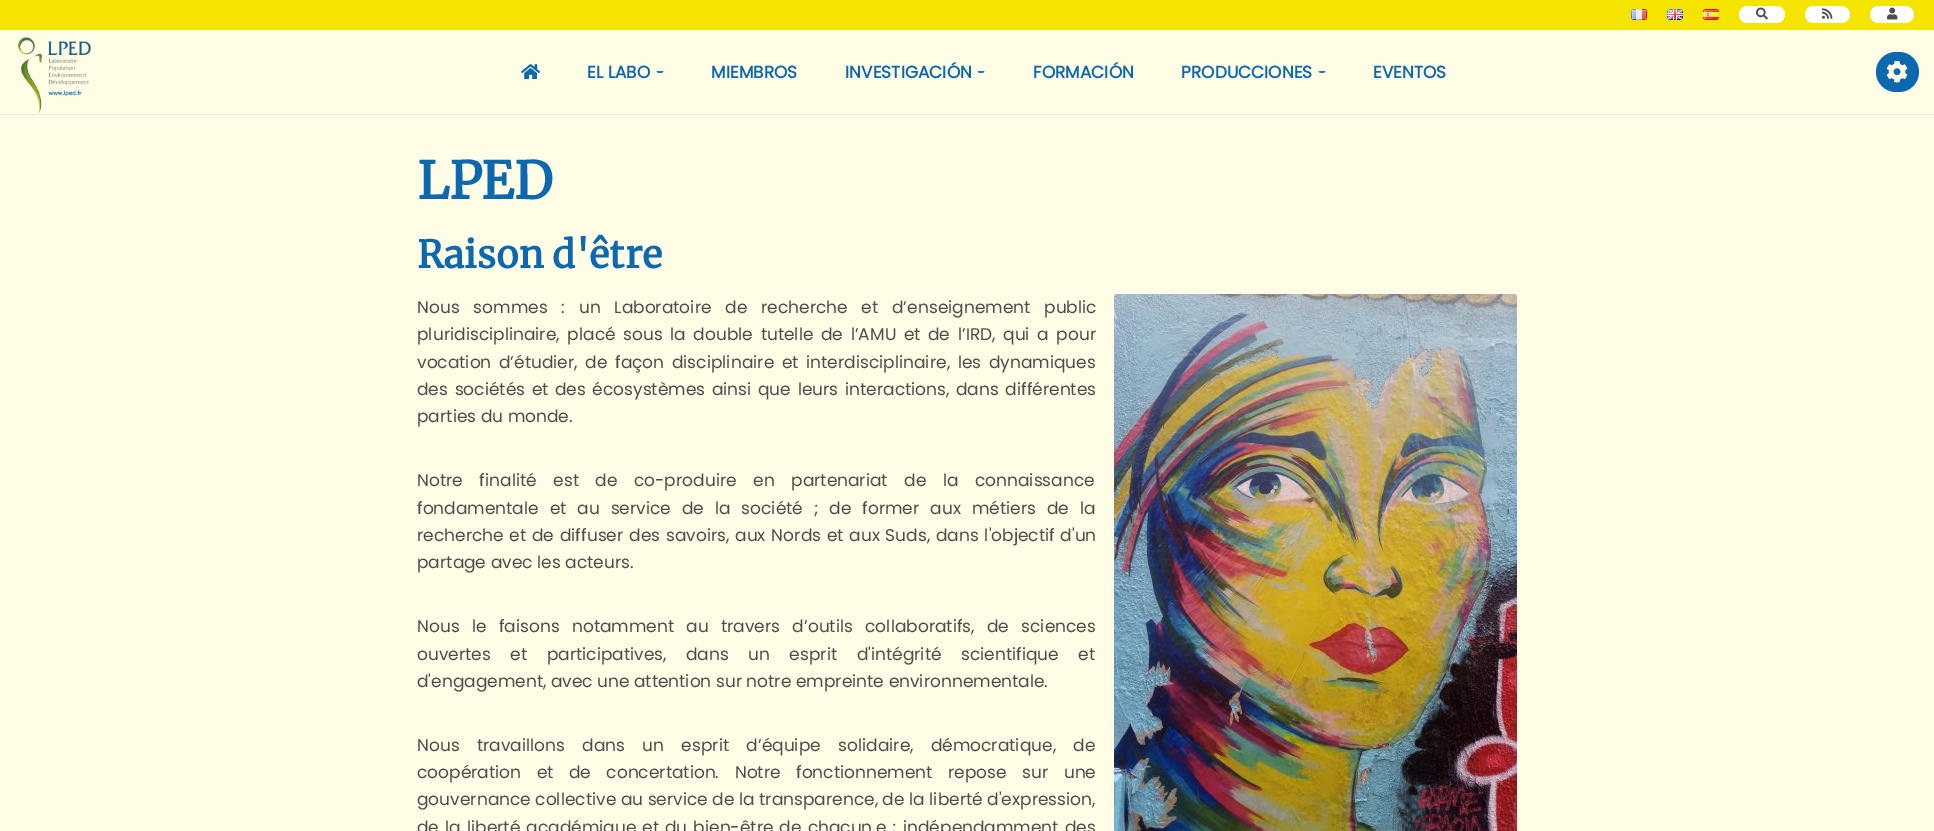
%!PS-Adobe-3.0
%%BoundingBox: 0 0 1934 831
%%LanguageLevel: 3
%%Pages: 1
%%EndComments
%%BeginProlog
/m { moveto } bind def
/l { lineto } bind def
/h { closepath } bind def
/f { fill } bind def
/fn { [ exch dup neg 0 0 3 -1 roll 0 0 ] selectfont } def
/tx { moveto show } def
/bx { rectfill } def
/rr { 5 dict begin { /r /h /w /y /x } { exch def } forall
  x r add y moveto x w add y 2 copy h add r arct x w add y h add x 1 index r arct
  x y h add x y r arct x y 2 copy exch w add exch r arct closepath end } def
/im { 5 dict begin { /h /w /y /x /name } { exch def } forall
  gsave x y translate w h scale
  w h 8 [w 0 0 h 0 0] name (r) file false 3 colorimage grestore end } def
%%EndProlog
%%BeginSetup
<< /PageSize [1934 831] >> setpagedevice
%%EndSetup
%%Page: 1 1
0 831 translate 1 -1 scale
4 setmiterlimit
1 0.992 0.898 setrgbcolor
0 0 1934 831 bx
0.961 0.894 0 setrgbcolor
0 0 1934 30 bx
(image0.raw) 1631 9 16 11 im
(image1.raw) 1667 9 16 11 im
(image2.raw) 1703 9 16 11 im
1 setgray
1739 6 46 17 8.5 rr f
(image3.raw) 1756 7 12 13 im
1805 6 45 17 8.5 rr f
(image4.raw) 1822 8 11 11 im
1870 6 44 17 8.5 rr f
(image5.raw) 1887 7 11 13 im
0.898 0.922 0.941 setrgbcolor
0 114 1934 1 bx
(image6.raw) 18 37 73 77 im
(image7.raw) 521 64 20 16 im
/Poppins-Bold 17 fn
0.047 0.408 0.694 setrgbcolor
(EL LABO) 587 78 tx
0.141 0.467 0.714 setrgbcolor
658 71 m 656.5 71.5 l 658 73 l 662 73 l 663.5 71.5 l 663 71 l h f
0.047 0.408 0.694 setrgbcolor
(MIEMBROS) 711 78 tx
(INVESTIGACIÓN) 845 78 tx
0.141 0.467 0.714 setrgbcolor
979 71 m 977.5 71.5 l 979 73 l 983 73 l 984.5 71.5 l 984 71 l h f
0.047 0.408 0.694 setrgbcolor
(FORMACIÓN) 1033 78 tx
(PRODUCCIONES) 1181 78 tx
0.141 0.467 0.714 setrgbcolor
1320 71 m 1318.5 71.5 l 1320 73 l 1324 73 l 1325.5 71.5 l 1325 71 l h f
0.047 0.408 0.694 setrgbcolor
(EVENTOS) 1373 78 tx
1876 52 43 40 20 rr f
(image8.raw) 1886 61 22 22 im
/Merriweather-Bold 51 fn
417 199 m -0.5 0 (LPED) ashow
/Merriweather-Bold 37.5 fn
(Raison d'être) 417 268 tx
/Poppins-Regular 17 fn
0.302 setgray
417 313 m 9.25 0 32 (Nous sommes : un Laboratoire de recherche et d’enseignement public) widthshow
417 340 m 3.1 0 32 (pluridisciplinaire, placé sous la double tutelle de l’AMU et de l’IRD, qui a pour) widthshow
417 368 m 3.1 0 32 (vocation d’étudier, de façon disciplinaire et interdisciplinaire, les dynamiques) widthshow
417 395 m 2.1 0 32 (des sociétés et des écosystèmes ainsi que leurs interactions, dans différentes) widthshow
(parties du monde.) 417 422 tx
(image9.raw) 1114 294 403 537 im
417 486 m 12 0 32 (Notre finalité est de co-produire en partenariat de la connaissance) widthshow
417 514 m 6.4 0 32 (fondamentale et au service de la société ; de former aux métiers de la) widthshow
417 541 m 1.25 0 32 (recherche et de diffuser des savoirs, aux Nords et aux Suds, dans l'objectif d'un) widthshow
(partage avec les acteurs.) 417 568 tx
417 632 m 7.75 0 32 (Nous le faisons notamment au travers d’outils collaboratifs, de sciences) widthshow
417 660 m 15 0 32 (ouvertes et participatives, dans un esprit d'intégrité scientifique et) widthshow
(d'engagement, avec une attention sur notre empreinte environnementale.) 417 687 tx
417 751 m 12.75 0 32 (Nous travaillons dans un esprit d’équipe solidaire, démocratique, de) widthshow
417 778 m 11 0 32 (coopération et de concertation. Notre fonctionnement repose sur une) widthshow
(gouvernance collective au service de la transparence, de la liberté d'expression,) 417 805 tx
417 833 m 1.5 0 32 (de la liberté académique et du bien-être de chacun.e ; indépendamment des) widthshow
showpage
%%EOF
